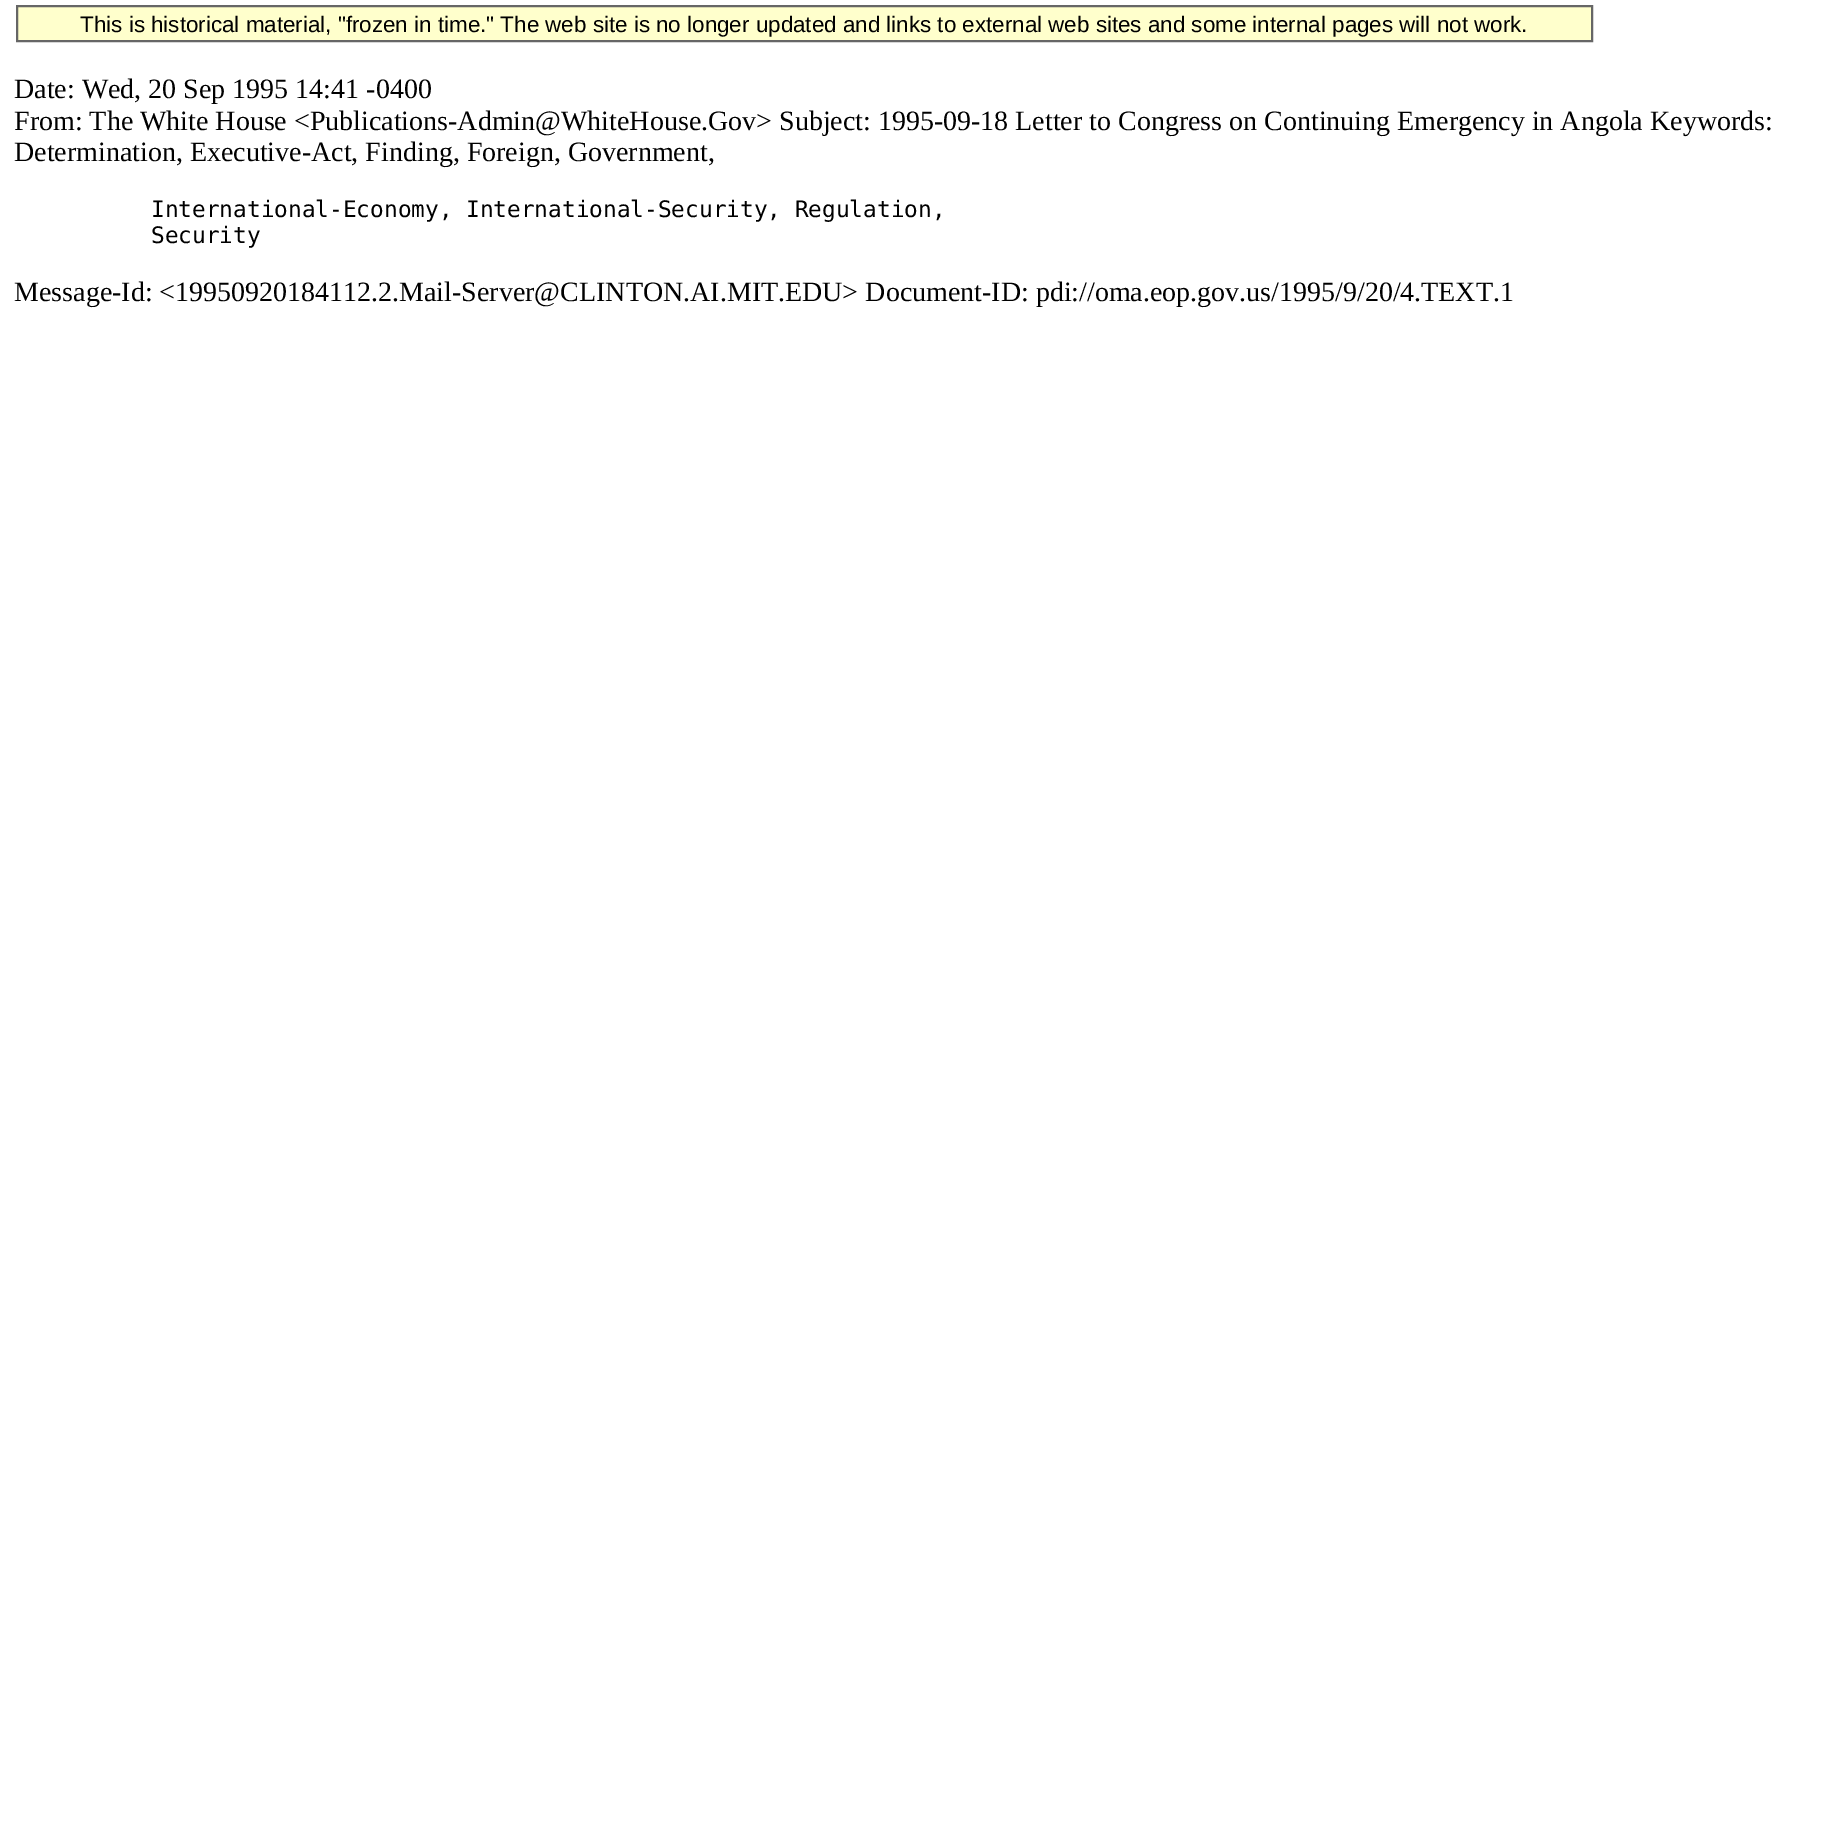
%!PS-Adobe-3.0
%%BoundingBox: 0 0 1841 1824
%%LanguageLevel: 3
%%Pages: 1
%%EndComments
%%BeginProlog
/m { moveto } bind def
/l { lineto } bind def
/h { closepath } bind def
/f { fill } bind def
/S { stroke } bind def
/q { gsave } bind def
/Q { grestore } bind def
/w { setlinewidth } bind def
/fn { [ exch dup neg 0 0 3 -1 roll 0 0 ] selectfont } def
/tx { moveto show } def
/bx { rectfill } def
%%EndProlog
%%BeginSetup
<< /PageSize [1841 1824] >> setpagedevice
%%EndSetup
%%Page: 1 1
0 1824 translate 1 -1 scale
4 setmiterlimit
1 setgray
0 0 1841 1824 bx
1 1 0.8 setrgbcolor
17 6 m 1592 6 l 1592 41 l 17 41 l h q f Q
0.4 setgray
2 w
S
/LiberationSans-Regular 22.4 fn
0 setgray
(This is historical material, "frozen in time." The web site is no longer updated and links to external web sites and some internal pages will not work.) 80 32 tx
/LiberationSerif-Regular 28 fn
(Date: Wed, 20 Sep 1995 14:41 -0400) 14 98 tx
(From: The White House <Publications-Admin@WhiteHouse.Gov> Subject: 1995-09-18 Letter to Congress on Continuing Emergency in Angola Keywords:) 14 130 tx
(Determination, Executive-Act, Finding, Foreign, Government,) 14 161 tx
/DejaVuSansMono-Regular 22.75 fn
(International-Economy, International-Security, Regulation,) 151 217 tx
(Security) 151 243 tx
/LiberationSerif-Regular 28 fn
(Message-Id: <19950920184112.2.Mail-Server@CLINTON.AI.MIT.EDU> Document-ID: pdi://oma.eop.gov.us/1995/9/20/4.TEXT.1) 14 301 tx
showpage
%%EOF
